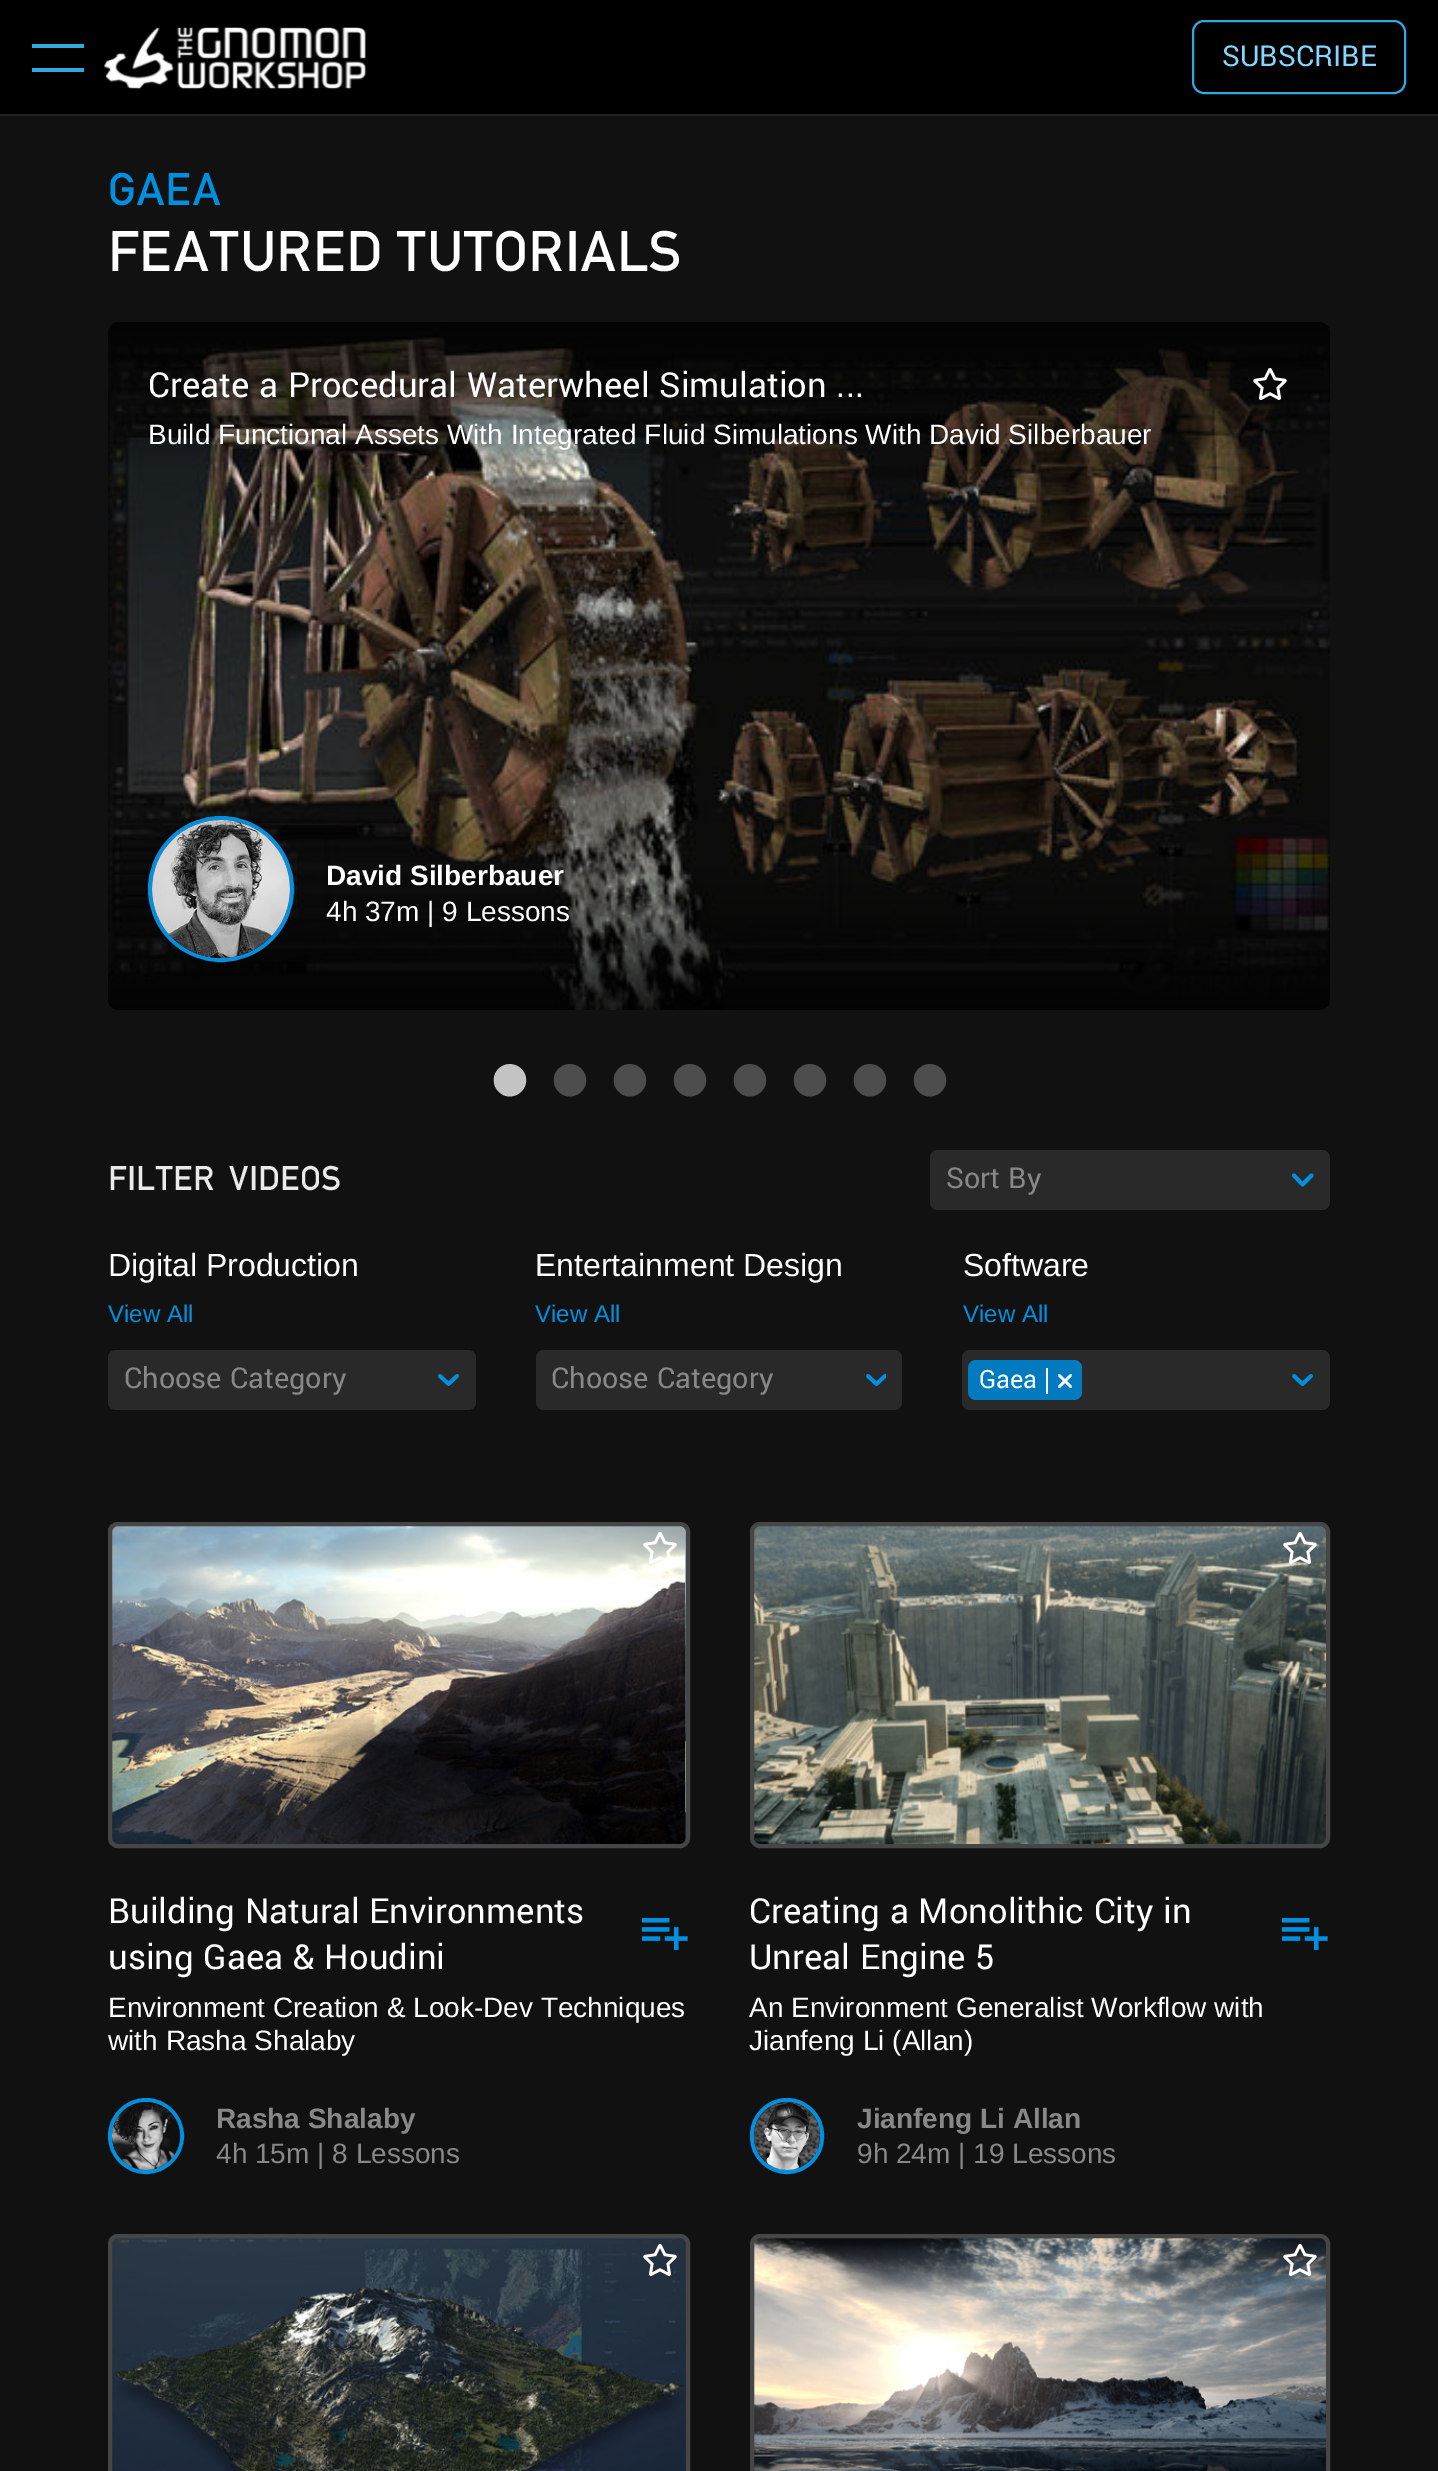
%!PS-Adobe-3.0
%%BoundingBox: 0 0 1438 2471
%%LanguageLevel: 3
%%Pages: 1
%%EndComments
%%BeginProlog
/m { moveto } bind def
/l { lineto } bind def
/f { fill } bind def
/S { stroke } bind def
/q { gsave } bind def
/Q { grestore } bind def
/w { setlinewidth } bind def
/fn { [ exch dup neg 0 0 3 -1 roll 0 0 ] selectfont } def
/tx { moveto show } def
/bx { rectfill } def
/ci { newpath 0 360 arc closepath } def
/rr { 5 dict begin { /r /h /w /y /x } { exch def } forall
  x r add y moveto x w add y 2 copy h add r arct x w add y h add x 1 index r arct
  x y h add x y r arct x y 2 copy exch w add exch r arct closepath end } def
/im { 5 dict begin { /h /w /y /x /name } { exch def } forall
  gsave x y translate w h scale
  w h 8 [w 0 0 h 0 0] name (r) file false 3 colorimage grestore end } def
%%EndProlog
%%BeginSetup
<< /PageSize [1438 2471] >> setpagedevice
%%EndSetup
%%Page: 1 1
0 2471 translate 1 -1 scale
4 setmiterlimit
0 setgray
0 0 1438 2471 bx
0.2 0.659 0.878 setrgbcolor
32 44 52 4 bx
32 68 52 4 bx
(image0.raw) 104 27 263 63 im
2 w
1193 21 212 72 11 rr S
/Yantramanav-Regular 32 fn
0.51 0.839 1 setrgbcolor
(SUBSCRIBE) 1222 66 tx
0.067 setgray
0 116 1438 2355 bx
0.129 setgray
0 114 1438 2 bx
/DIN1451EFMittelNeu-Regular 48 fn
0.008 0.561 0.875 setrgbcolor
(GAEA) 108 205 tx
/DIN1451EFMittelNeu-Regular 60 fn
1 setgray
108 271 m -15 0 32 (FEATURED TUTORIALS) widthshow
(image1.raw) 108 322 1222 688 im
/Yantramanav-Regular 38.4 fn
(Create a Procedural Waterwheel Simulation ...) 148 397 tx
(image2.raw) 1253 368 34 32 im
/LiberationSans-Regular 28 fn
(Build Functional Assets With Integrated Fluid Simulations With David Silberbauer) 148 444 tx
0.008 0.561 0.875 setrgbcolor
4 w
221 889 71 ci S
(image3.raw) 152 820 138 138 im
/LiberationSans-Bold 28 fn
1 setgray
(David Silberbauer) 326 885 tx
/LiberationSans-Regular 28 fn
(4h 37m | 9 Lessons) 326 921 tx
/LiberationSans-Regular 120 fn
0.769 setgray
(•) 489 1120 tx
0.302 setgray
(•) 549 1120 tx
(•) 609 1120 tx
(•) 669 1120 tx
(•) 729 1120 tx
(•) 789 1120 tx
(•) 849 1120 tx
(•) 909 1120 tx
/DIN1451EFMittelNeu-Regular 36 fn
0.918 setgray
108 1190 m -3 0 32 (FILTER VIDEOS) widthshow
0.161 setgray
930 1150 400 60 8 rr f
/Yantramanav-Regular 32 fn
0.533 setgray
(Sort By) 946 1188 tx
0.008 0.561 0.875 setrgbcolor
3.9 w
1 setlinecap
1 setlinejoin
1294 1175.5 m 1302.5 1184.5 l 1311.5 1175.5 l S
/LiberationSans-Regular 32 fn
1 setgray
(Digital Production) 108 1276 tx
/LiberationSans-Regular 24 fn
0.008 0.561 0.875 setrgbcolor
(View All) 108 1322 tx
0.161 setgray
108 1350 368 60 8 rr f
/Yantramanav-Regular 32 fn
0.533 setgray
(Choose Category) 124 1388 tx
0.008 0.561 0.875 setrgbcolor
3.8 w
440 1376 m 448.5 1384 l 457 1376 l S
/LiberationSans-Regular 32 fn
1 setgray
(Entertainment Design) 535 1276 tx
/LiberationSans-Regular 24 fn
0.008 0.561 0.875 setrgbcolor
(View All) 535 1322 tx
0.161 setgray
536 1350 366 60 8 rr f
/Yantramanav-Regular 32 fn
0.533 setgray
(Choose Category) 551 1388 tx
q
866 1368 20 24 rectclip
0.008 0.561 0.875 setrgbcolor
868 1376 m 876.5 1384 l 885 1376 l S
Q
/LiberationSans-Regular 32 fn
1 setgray
(Software) 963 1276 tx
/LiberationSans-Regular 24 fn
0.008 0.561 0.875 setrgbcolor
(View All) 963 1322 tx
0.161 setgray
962 1350 368 60 8 rr f
0.008 0.478 0.753 setrgbcolor
968 1360 114 40 8 rr f
/Yantramanav-Regular 28 fn
1 setgray
(Gaea) 979 1388 tx
1046 1368 2 26 bx
2.5 w
1059.5 1375.5 m 1070.5 1386.5 l 1059.5 1386.5 m 1070.5 1375.5 l S
0.008 0.561 0.875 setrgbcolor
3.8 w
1294 1376 m 1302.5 1384 l 1311 1376 l S
(image4.raw) 108 1522 582 326 im
0.275 setgray
4 w
0 setlinecap
0 setlinejoin
110 1524 578 322 8 rr S
(image5.raw) 643 1532 34 32 im
/Yantramanav-Regular 38.4 fn
1 setgray
(Building Natural Environments) 108 1923 tx
(image6.raw) 642 1918 46 32 im
(using Gaea & Houdini) 108 1969 tx
/LiberationSans-Regular 28 fn
(Environment Creation & Look-Dev Techniques) 108 2017 tx
(with Rasha Shalaby) 108 2050 tx
0.008 0.561 0.875 setrgbcolor
146 2136 36 ci S
(image7.raw) 112 2102 68 68 im
/LiberationSans-Bold 28 fn
0.533 setgray
(Rasha Shalaby) 216 2128 tx
/LiberationSans-Regular 28 fn
(4h 15m | 8 Lessons) 216 2163 tx
(image8.raw) 750 1522 580 326 im
0.275 setgray
752 1524 576 322 8 rr S
(image9.raw) 1283 1532 34 32 im
/Yantramanav-Regular 38.4 fn
1 setgray
(Creating a Monolithic City in) 749 1923 tx
(image6.raw) 1282 1918 46 32 im
(Unreal Engine 5) 749 1969 tx
/LiberationSans-Regular 28 fn
(An Environment Generalist Workflow with) 749 2017 tx
(Jianfeng Li \(Allan\)) 749 2050 tx
0.008 0.561 0.875 setrgbcolor
752 2100 70 72 35 rr S
(image10.raw) 754 2102 66 68 im
/LiberationSans-Bold 28 fn
0.533 setgray
(Jianfeng Li Allan) 857 2128 tx
/LiberationSans-Regular 28 fn
(9h 24m | 19 Lessons) 857 2163 tx
(image11.raw) 108 2234 582 237 im
0.275 setgray
110 2236 578 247 8 rr S
(image12.raw) 643 2244 34 32 im
(image13.raw) 750 2234 580 237 im
752 2236 576 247 8 rr S
(image14.raw) 1283 2244 34 32 im
showpage
%%EOF
